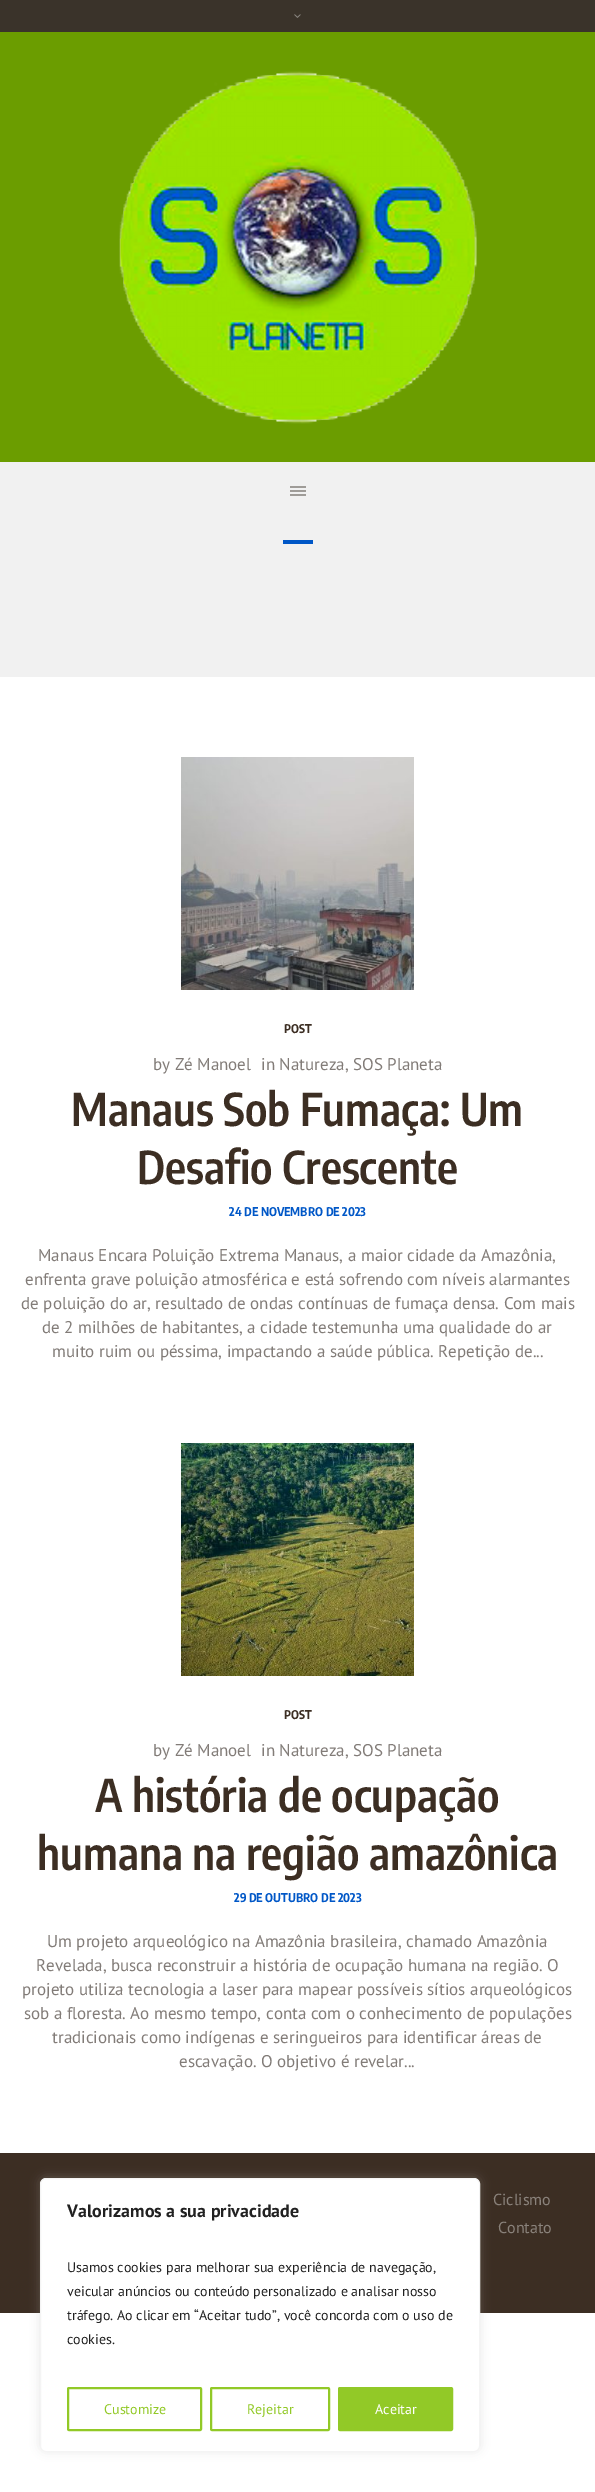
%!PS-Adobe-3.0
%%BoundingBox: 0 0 595 2492
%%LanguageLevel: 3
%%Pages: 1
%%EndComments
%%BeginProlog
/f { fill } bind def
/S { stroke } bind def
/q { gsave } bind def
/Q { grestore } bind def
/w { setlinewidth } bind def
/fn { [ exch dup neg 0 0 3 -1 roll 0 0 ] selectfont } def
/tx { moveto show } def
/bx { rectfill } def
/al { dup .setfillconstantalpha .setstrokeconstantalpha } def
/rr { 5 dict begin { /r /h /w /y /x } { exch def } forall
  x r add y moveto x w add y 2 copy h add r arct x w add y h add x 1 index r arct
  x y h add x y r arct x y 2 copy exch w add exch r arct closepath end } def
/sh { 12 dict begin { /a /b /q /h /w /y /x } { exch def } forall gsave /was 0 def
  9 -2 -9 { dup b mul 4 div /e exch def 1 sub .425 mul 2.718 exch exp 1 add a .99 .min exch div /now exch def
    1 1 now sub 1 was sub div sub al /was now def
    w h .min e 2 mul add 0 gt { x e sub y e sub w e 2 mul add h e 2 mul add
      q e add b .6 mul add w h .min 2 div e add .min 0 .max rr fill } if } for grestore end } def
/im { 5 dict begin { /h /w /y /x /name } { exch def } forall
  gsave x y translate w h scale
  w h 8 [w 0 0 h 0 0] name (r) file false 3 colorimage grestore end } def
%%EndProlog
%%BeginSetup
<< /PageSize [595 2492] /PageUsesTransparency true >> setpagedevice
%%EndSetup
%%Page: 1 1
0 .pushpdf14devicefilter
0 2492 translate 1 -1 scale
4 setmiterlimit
1 setgray
0 0 595 2492 bx
0.227 0.2 0.165 setrgbcolor
0 0 595 32 bx
(image0.raw) 294 14 7 4 im
0.42 0.616 0 setrgbcolor
0 32 595 430 bx
(image1.raw) 119 71 358 353 im
0.945 setgray
0 462 595 215 bx
0.624 0.612 0.596 setrgbcolor
290 490 16 2 bx
290 486 16 2 bx
290 494 16 2 bx
0 0.341 0.78 setrgbcolor
283 540 30 4 bx
(image2.raw) 181 757 233 233 im
/EncodeSansCondensed-Bold 12 fn
0.235 0.18 0.137 setrgbcolor
(POST) 284 1033 tx
/PTSans-Regular 17 fn
0.51 0.486 0.471 setrgbcolor
(by Zé Manoel) 153 1070 tx
(in Natureza, SOS Planeta) 261 1070 tx
/EncodeSansCondensed-SemiBold 45 fn
0.235 0.18 0.137 setrgbcolor
(Manaus Sob Fumaça: Um) 71 1126 tx
(Desafio Crescente) 137 1184 tx
/EncodeSansCondensed-Bold 12 fn
0 0.341 0.78 setrgbcolor
(24 DE NOVEMBRO DE 2023) 229 1216 tx
/PTSans-Regular 17 fn
0.51 0.486 0.471 setrgbcolor
(Manaus Encara Poluição Extrema Manaus, a maior cidade da Amazônia,) 38 1261 tx
(enfrenta grave poluição atmosférica e está sofrendo com níveis alarmantes) 25 1285 tx
(de poluição do ar, resultado de ondas contínuas de fumaça densa. Com mais) 21 1309 tx
(de 2 milhões de habitantes, a cidade testemunha uma qualidade do ar) 42 1333 tx
(muito ruim ou péssima, impactando a saúde pública. Repetição de...) 52 1357 tx
(image3.raw) 181 1443 233 233 im
/EncodeSansCondensed-Bold 12 fn
0.235 0.18 0.137 setrgbcolor
(POST) 284 1719 tx
/PTSans-Regular 17 fn
0.51 0.486 0.471 setrgbcolor
(by Zé Manoel) 153 1756 tx
(in Natureza, SOS Planeta) 261 1756 tx
/EncodeSansCondensed-SemiBold 45 fn
0.235 0.18 0.137 setrgbcolor
(A história de ocupação) 95 1812 tx
(humana na região amazônica) 37 1870 tx
/EncodeSansCondensed-Bold 12 fn
0 0.341 0.78 setrgbcolor
(29 DE OUTUBRO DE 2023) 234 1902 tx
/PTSans-Regular 17 fn
0.51 0.486 0.471 setrgbcolor
(Um projeto arqueológico na Amazônia brasileira, chamado Amazônia) 47 1947 tx
(Revelada, busca reconstruir a história de ocupação humana na região. O) 36 1971 tx
(projeto utiliza tecnologia a laser para mapear possíveis sítios arqueológicos) 22 1995 tx
(sob a floresta. Ao mesmo tempo, conta com o conhecimento de populações) 24 2019 tx
(tradicionais como indígenas e seringueiros para identificar áreas de) 52 2043 tx
(escavação. O objetivo é revelar...) 179 2067 tx
0.235 0.18 0.137 setrgbcolor
0 2153 595 160 bx
/PTSans-Regular 16 fn
0.541 0.51 0.482 setrgbcolor
(Ciclismo) 493 2205 tx
(Contato) 498 2233 tx
0.675 0.671 0.671 setrgbcolor
40 2177 440 274 6 5 0.3 sh
1 setgray
40.5 2178.5 439 273 5.5 rr q f Q
0.957 setgray
S
/PTSans-Bold 18 fn
0.129 setgray
(Valorizamos a sua privacidade) 67 2217 tx
/PTSans-Regular 14 fn
(Usamos cookies para melhorar sua experiência de navegação,) 67 2272 tx
(veicular anúncios ou conteúdo personalizado e analisar nosso) 67 2296 tx
(tráfego. Ao clicar em “Aceitar tudo”, você concorda com o uso de) 67 2320 tx
(cookies.) 67 2344 tx
0.573 0.788 0.153 setrgbcolor
2 w
68 2388 133 42 1 rr S
(Customize) 104 2414 tx
211 2388 118 42 1 rr S
(Rejeitar) 247 2414 tx
339 2388 113 42 1 rr q f Q
S
1 setgray
(Aceitar) 375 2414 tx
.poppdf14devicefilter showpage
%%EOF
